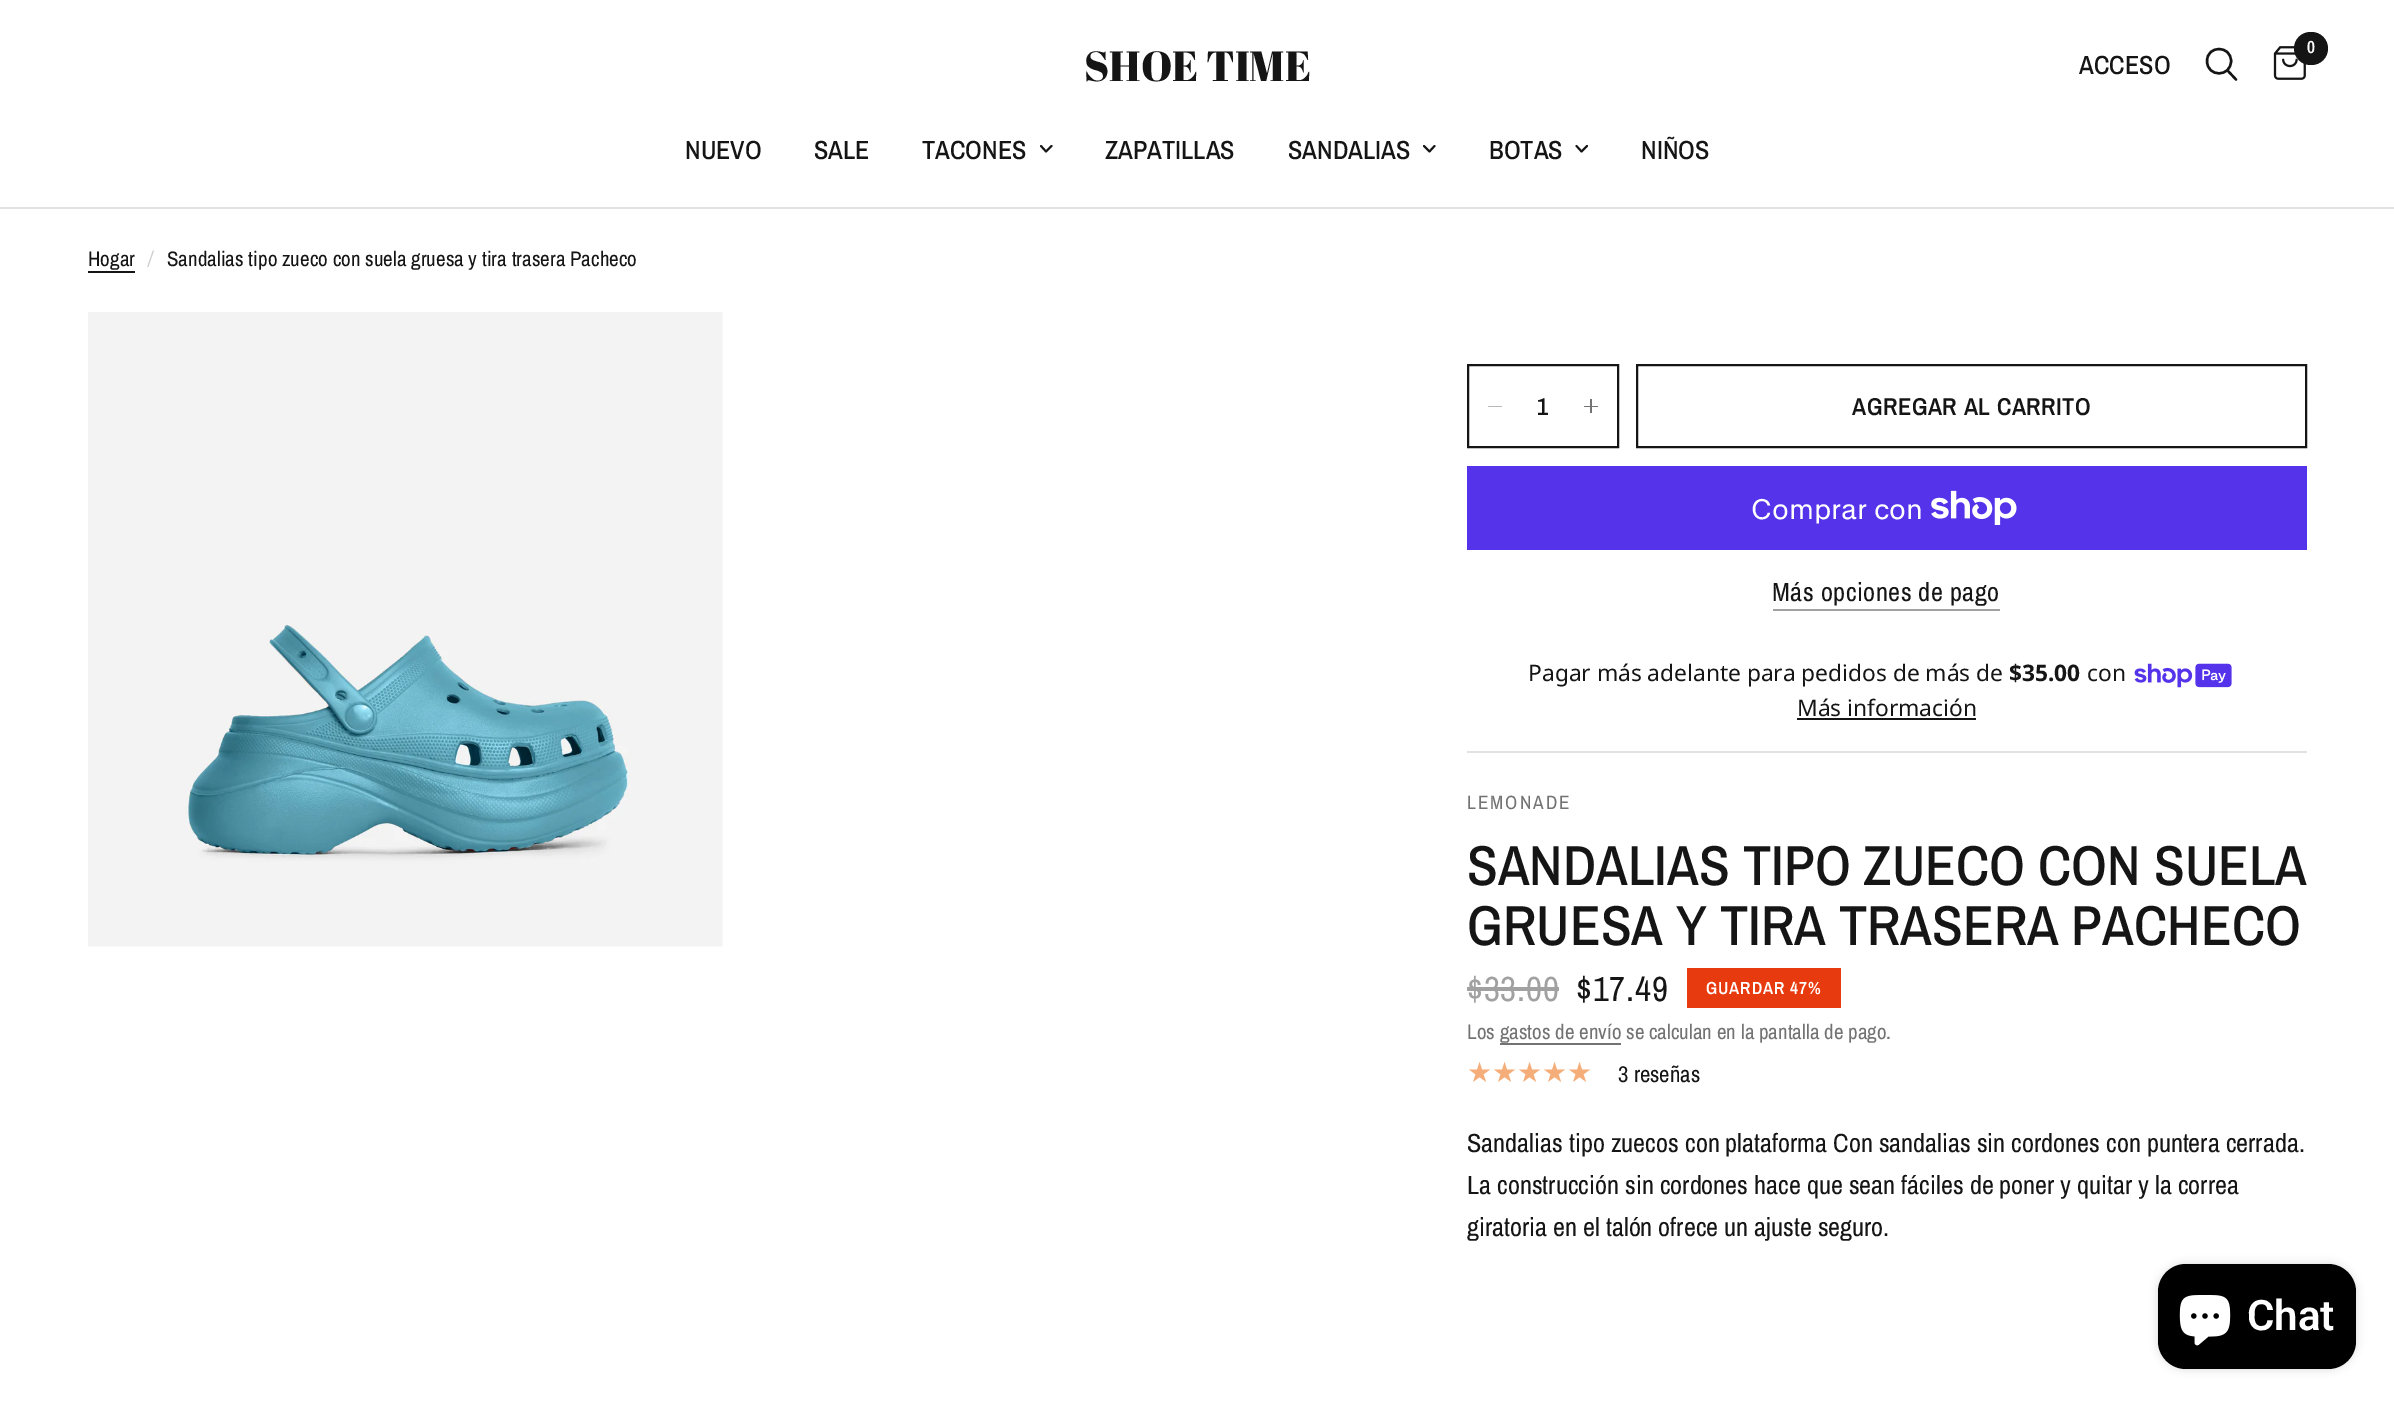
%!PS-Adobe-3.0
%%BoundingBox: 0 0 2394 1405
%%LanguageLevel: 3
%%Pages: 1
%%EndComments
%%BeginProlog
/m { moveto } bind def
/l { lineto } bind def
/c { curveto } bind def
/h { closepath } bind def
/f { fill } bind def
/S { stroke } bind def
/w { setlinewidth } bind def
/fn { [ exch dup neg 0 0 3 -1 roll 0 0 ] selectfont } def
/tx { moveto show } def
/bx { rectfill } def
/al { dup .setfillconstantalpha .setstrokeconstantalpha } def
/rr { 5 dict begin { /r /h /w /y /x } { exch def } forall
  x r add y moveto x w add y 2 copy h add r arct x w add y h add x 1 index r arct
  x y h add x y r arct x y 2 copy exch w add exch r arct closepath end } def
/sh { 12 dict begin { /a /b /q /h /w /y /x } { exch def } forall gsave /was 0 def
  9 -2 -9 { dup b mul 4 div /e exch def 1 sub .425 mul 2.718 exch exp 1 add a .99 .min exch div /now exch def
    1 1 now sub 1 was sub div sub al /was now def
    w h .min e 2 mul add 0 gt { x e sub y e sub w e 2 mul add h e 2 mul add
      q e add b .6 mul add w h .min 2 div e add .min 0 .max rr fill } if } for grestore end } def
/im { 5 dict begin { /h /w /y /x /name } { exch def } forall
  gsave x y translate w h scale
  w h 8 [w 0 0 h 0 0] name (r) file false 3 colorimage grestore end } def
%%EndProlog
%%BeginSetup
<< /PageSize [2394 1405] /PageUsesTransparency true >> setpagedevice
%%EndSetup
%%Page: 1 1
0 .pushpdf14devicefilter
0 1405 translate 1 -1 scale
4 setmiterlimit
1 setgray
0 0 2394 1405 bx
0.886 setgray
0 207 2394 2 bx
/AbrilFatface-Regular 42 fn
0.082 setgray
(SHOE TIME) 1084 81 tx
/ArchivoNarrow-Medium 26.25 fn
(ACCESO) 2079 74 tx
2.4 w
1 setlinecap
1 setlinejoin
2228 71 m 2236 79.5 l 2231 61 m 2231 77.5 2207 77.5 2207 61 c 2207 45 2231 45 2231 61 c h S
(image0.raw) 2273 46 33 34 im
2294 32 34 33 16.5 rr f
/ArchivoNarrow-SemiBold 17.5 fn
1 setgray
(0) 2307 53 tx
/ArchivoNarrow-Medium 26.25 fn
0.082 setgray
(NUEVO) 685 159 tx
(SALE) 814 159 tx
(TACONES) 922 159 tx
1.9 w
1051.5 146 m 1046 151.5 l 1041 146 l S
(ZAPATILLAS) 1105 159 tx
(SANDALIAS) 1288 159 tx
1434.5 146 m 1429.5 151.5 l 1424 146 l S
(BOTAS) 1489 159 tx
1587 146 m 1581.5 151.5 l 1576.5 146 l S
(NIÑOS) 1641 159 tx
/ArchivoNarrow-Regular 21 fn
(Hogar) 88 266 tx
88 271 47 2 bx
/ArchivoNarrow-Italic 21 fn
0.816 setgray
(/) 148 266 tx
/ArchivoNarrow-Regular 21 fn
0.082 setgray
(Sandalias tipo zueco con suela gruesa y tira trasera Pacheco) 167 266 tx
(image1.raw) 88 312 635 635 im
2 w
0 setlinecap
0 setlinejoin
1468 365 150 82 rectstroke
0.725 setgray
1488 406 14 1 bx
/ArchivoNarrow-SemiBold 24.5 fn
0.082 setgray
(1) 1537 415 tx
0.451 setgray
1590 399 2 14 bx
1584 406 14 1 bx
0.082 setgray
1637 365 669 82 rectstroke
1852 415 m 0.5 0 (AGREGAR AL CARRITO) ashow
0.329 0.2 0.922 setrgbcolor
1467 466 840 84 bx
/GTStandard-Regular 28 fn
1 setgray
(Comprar con) 1751 519 tx
(image2.raw) 1931 490 86 35 im
/ArchivoNarrow-Regular 26.25 fn
0.082 setgray
1772 601 m 0.5 0 (Más opciones de pago) ashow
0.631 setgray
1773 609 227 2 bx
0.886 setgray
1467 751 840 2 bx
/NotoSans-Regular 22.75 fn
0.082 setgray
(Pagar más adelante para pedidos de más de) 1528 681 tx
/NotoSans-Bold 22.75 fn
($35.00) 2009 681 tx
/NotoSans-Regular 22.75 fn
(con) 2087 681 tx
(image3.raw) 2134 663 98 25 im
(Más información) 1797 716 tx
1797 718 179 2 bx
/ArchivoNarrow-Regular 19.25 fn
0.451 setgray
1467 809 m 2 0 (LEMONADE) ashow
/ArchivoNarrow-Medium 56.4 fn
0.082 setgray
(SANDALIAS TIPO ZUECO CON SUELA) 1467 885 tx
(GRUESA Y TIRA TRASERA PACHECO) 1467 945 tx
/ArchivoNarrow-Regular 35 fn
0.631 setgray
1467 1001 m 0.75 0 ($33.00) ashow
1467 987 92 4 bx
0.082 setgray
1576 1001 m 0.75 0 ($17.49) ashow
0.91 0.227 0.059 setrgbcolor
1687 968 154 40 bx
/ArchivoNarrow-SemiBold 17.5 fn
1 setgray
1706 994 m 0.9 0 (GUARDAR 47%) ashow
/ArchivoNarrow-Regular 21 fn
0.451 setgray
(Los gastos de envío se calculan en la pantalla de pago.) 1467 1039 tx
1500 1043 121 2 bx
/DejaVuSans-Regular 28 fn
0.961 0.678 0.475 setrgbcolor
(★★★★★) 1467 1082 tx
/ArchivoNarrow-Regular 22.75 fn
0.082 setgray
(3 reseñas) 1618 1082 tx
/ArchivoNarrow-Regular 26.25 fn
(Sandalias tipo zuecos con plataforma Con sandalias sin cordones con puntera cerrada.) 1467 1152 tx
(La construcción sin cordones hace que sean fáciles de poner y quitar y la correa) 1467 1194 tx
(giratoria en el talón ofrece un ajuste seguro.) 1467 1236 tx
0 setgray
2158 1264 198 105 28 4.5 0.15 sh
2158 1264 198 105 28 rr f
(image4.raw) 2179 1295 52 51 im
/Roboto-SemiBold 42 fn
1 setgray
(Chat) 2247 1330 tx
.poppdf14devicefilter showpage
%%EOF
